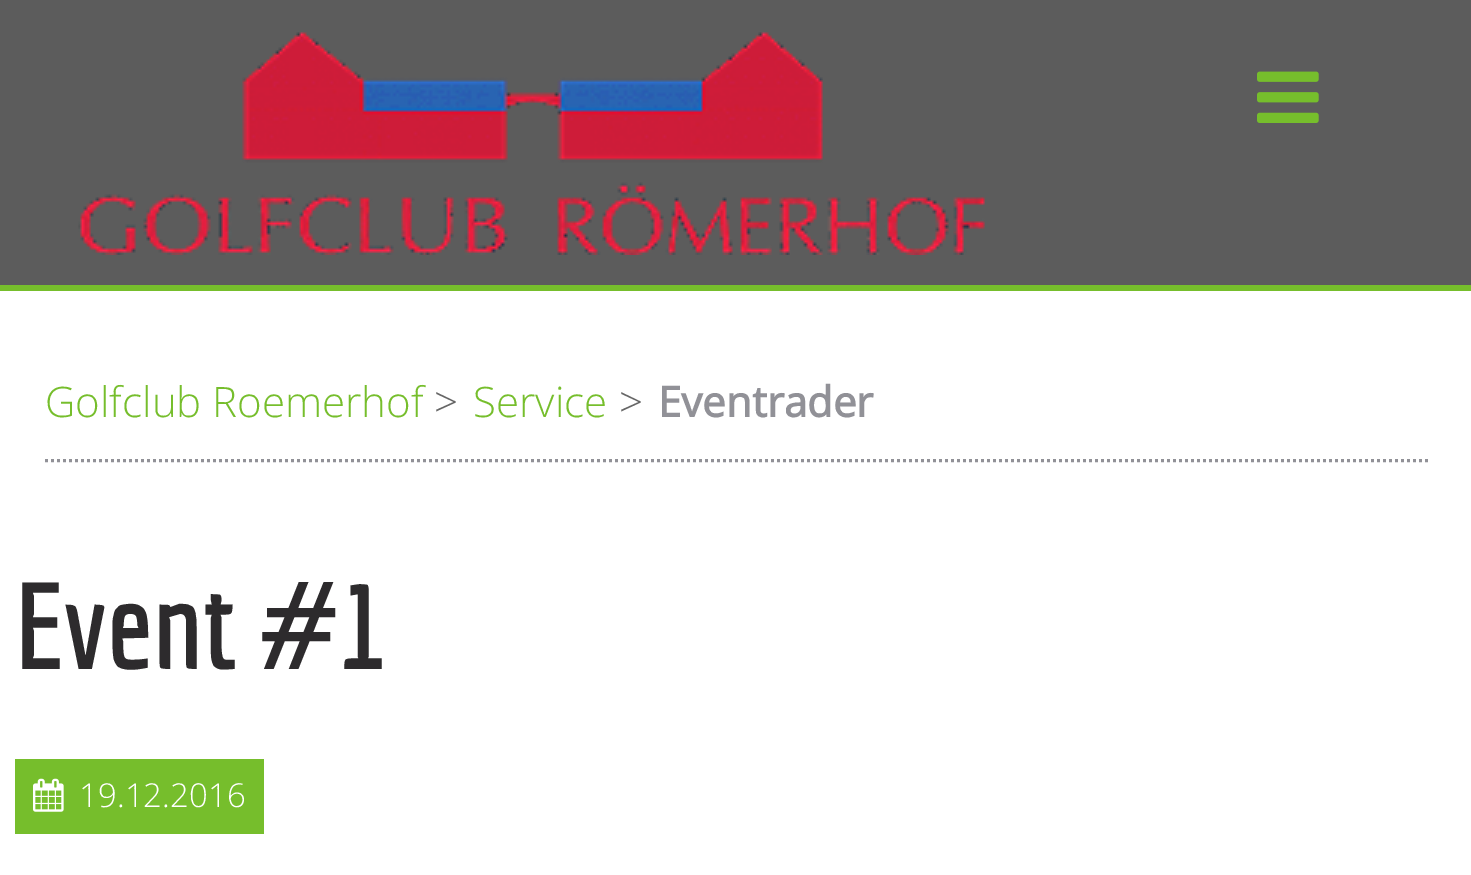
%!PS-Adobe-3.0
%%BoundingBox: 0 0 1471 875
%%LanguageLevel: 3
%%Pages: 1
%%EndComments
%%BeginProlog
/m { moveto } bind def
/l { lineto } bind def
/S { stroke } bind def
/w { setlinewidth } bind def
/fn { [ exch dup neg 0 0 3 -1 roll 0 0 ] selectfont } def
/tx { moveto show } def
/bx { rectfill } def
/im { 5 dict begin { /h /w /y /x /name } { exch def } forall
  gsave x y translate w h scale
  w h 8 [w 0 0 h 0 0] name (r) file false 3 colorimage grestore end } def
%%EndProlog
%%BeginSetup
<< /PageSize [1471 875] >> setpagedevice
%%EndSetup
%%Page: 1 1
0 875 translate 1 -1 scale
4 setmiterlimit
1 setgray
0 0 1471 875 bx
0.361 setgray
0 0 1471 285 bx
0.463 0.745 0.173 setrgbcolor
0 285 1471 6 bx
(image0.raw) 78 32 907 223 im
(image1.raw) 1257 71 62 52 im
0.569 0.569 0.592 setrgbcolor
3 w
[3 3] 0 setdash
45 460.5 m 1428 460.5 l S
/OpenSans-Light 42 fn
0.463 0.745 0.173 setrgbcolor
(Golfclub Roemerhof) 45 417 tx
0.4 setgray
(>) 434 417 tx
0.463 0.745 0.173 setrgbcolor
(Service) 473 417 tx
0.4 setgray
(>) 619 417 tx
/OpenSans-Bold 42 fn
0.569 0.569 0.592 setrgbcolor
(Eventrader) 658 417 tx
/Economica-Bold 120 fn
0.176 0.169 0.176 setrgbcolor
(Event #1) 15 669 tx
0.463 0.745 0.173 setrgbcolor
15 759 249 75 bx
(image2.raw) 33 778 31 34 im
/OpenSans-Light 33 fn
1 setgray
(19.12.2016) 79 807 tx
showpage
%%EOF
